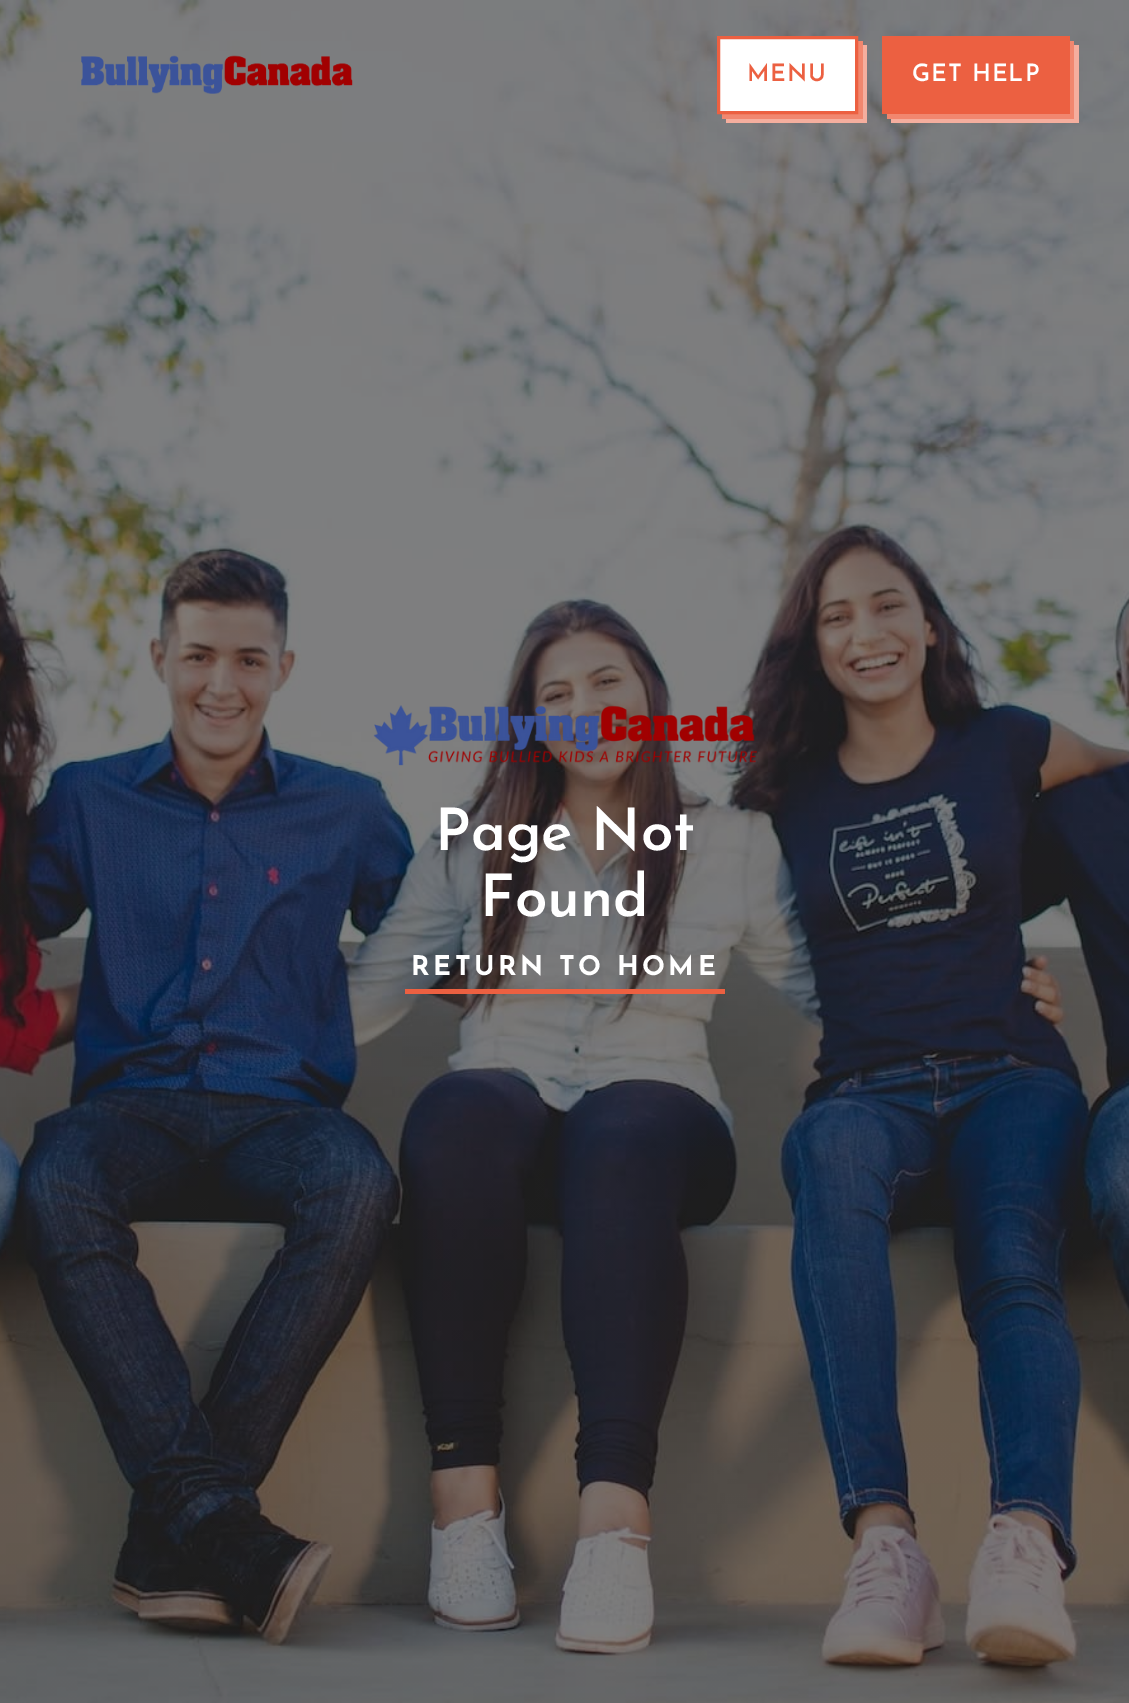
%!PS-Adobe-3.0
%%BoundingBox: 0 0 1129 1703
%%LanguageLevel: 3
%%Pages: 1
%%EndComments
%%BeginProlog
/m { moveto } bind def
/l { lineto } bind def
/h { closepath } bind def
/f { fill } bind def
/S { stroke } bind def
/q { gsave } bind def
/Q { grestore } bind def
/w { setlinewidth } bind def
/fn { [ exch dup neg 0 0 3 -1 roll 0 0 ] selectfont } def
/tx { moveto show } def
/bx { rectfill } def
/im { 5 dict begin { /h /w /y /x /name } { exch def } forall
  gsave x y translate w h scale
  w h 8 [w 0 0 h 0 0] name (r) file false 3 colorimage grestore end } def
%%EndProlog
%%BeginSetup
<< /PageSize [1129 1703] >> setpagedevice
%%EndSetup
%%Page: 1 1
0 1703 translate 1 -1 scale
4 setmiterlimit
1 setgray
0 0 1129 1703 bx
(image1.raw) 0 0 1129 1703 im
(image0.raw) 81 55 272 39 im
0.961 0.682 0.62 setrgbcolor
726 114 m 726 123 l 867 123 l 867 45 l 858 45 l 858 114 l h f
0.945 0.529 0.435 setrgbcolor
722 114 m 722 119 l 863 119 l 863 41 l 858 41 l 858 114 l h f
1 setgray
718.5 37.5 m 856.5 37.5 l 856.5 112.5 l 718.5 112.5 l h q f Q
0.925 0.376 0.255 setrgbcolor
3 w
S
/JosefinSans-SemiBold 24 fn
747 81 m 1 0 (MENU) ashow
0.961 0.682 0.62 setrgbcolor
891 114 m 891 123 l 1079 123 l 1079 45 l 1070 45 l 1070 114 l h f
0.945 0.529 0.435 setrgbcolor
887 114 m 887 119 l 1074 119 l 1074 41 l 1070 41 l 1070 114 l h f
0.925 0.376 0.255 setrgbcolor
882 36 188 78 bx
1 setgray
912 81 m 1 0 (GET HELP) ashow
(image2.raw) 373 705 384 61 im
/JosefinSans-SemiBold 58.5 fn
(Page Not) 435 850 tx
(Found) 480 916 tx
0.925 0.376 0.255 setrgbcolor
405 989 320 5 bx
/JosefinSans-Bold 27 fn
1 setgray
411 975 m 3.5 0 (RETURN TO HOME) ashow
showpage
%%EOF
